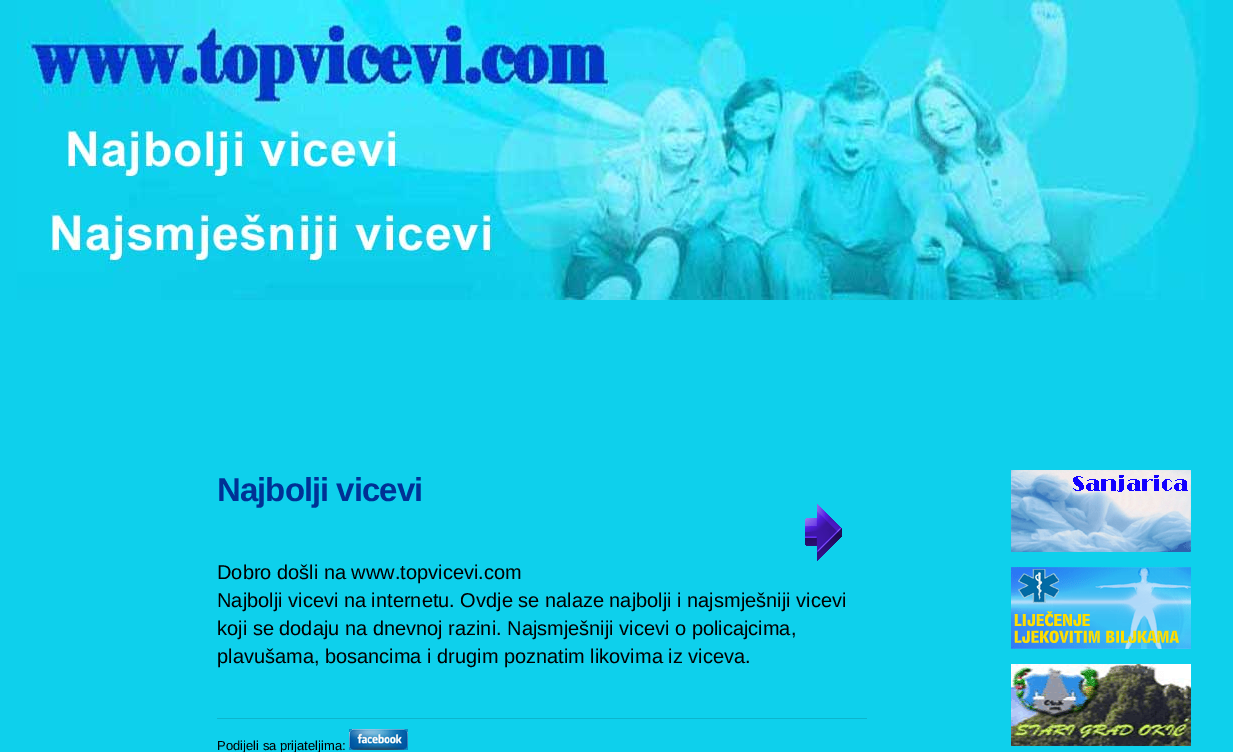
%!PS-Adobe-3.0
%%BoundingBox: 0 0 1233 752
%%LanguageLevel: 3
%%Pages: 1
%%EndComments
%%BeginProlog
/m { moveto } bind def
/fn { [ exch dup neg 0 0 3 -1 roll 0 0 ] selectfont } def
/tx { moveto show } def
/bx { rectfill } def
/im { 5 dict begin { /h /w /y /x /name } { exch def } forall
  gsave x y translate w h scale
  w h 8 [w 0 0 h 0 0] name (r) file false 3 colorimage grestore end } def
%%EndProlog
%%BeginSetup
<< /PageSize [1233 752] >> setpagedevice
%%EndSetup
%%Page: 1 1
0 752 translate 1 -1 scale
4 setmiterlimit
0.055 0.816 0.925 setrgbcolor
0 0 1233 752 bx
(image0.raw) 17 0 1189 300 im
/LiberationSans-Bold 33 fn
0 0.192 0.584 setrgbcolor
217 501 m -1 0 (Najbolji vicevi) ashow
/LiberationSans-Regular 20 fn
0 setgray
(Dobro došli na www.topvicevi.com) 217 579 tx
(Najbolji vicevi na internetu. Ovdje se nalaze najbolji i najsmješniji vicevi) 217 607 tx
(koji se dodaju na dnevnoj razini. Najsmješniji vicevi o policajcima,) 217 635 tx
(plavušama, bosancima i drugim poznatim likovima iz viceva.) 217 663 tx
0.047 0.71 0.804 setrgbcolor
217 718 650 1 bx
/LiberationSans-Regular 13 fn
0 setgray
(Podijeli sa prijateljima:) 217 750 tx
(image1.raw) 349 729 59 21 im
(image2.raw) 805 504 37 57 im
(image3.raw) 1011 470 180 276 im
showpage
%%EOF
